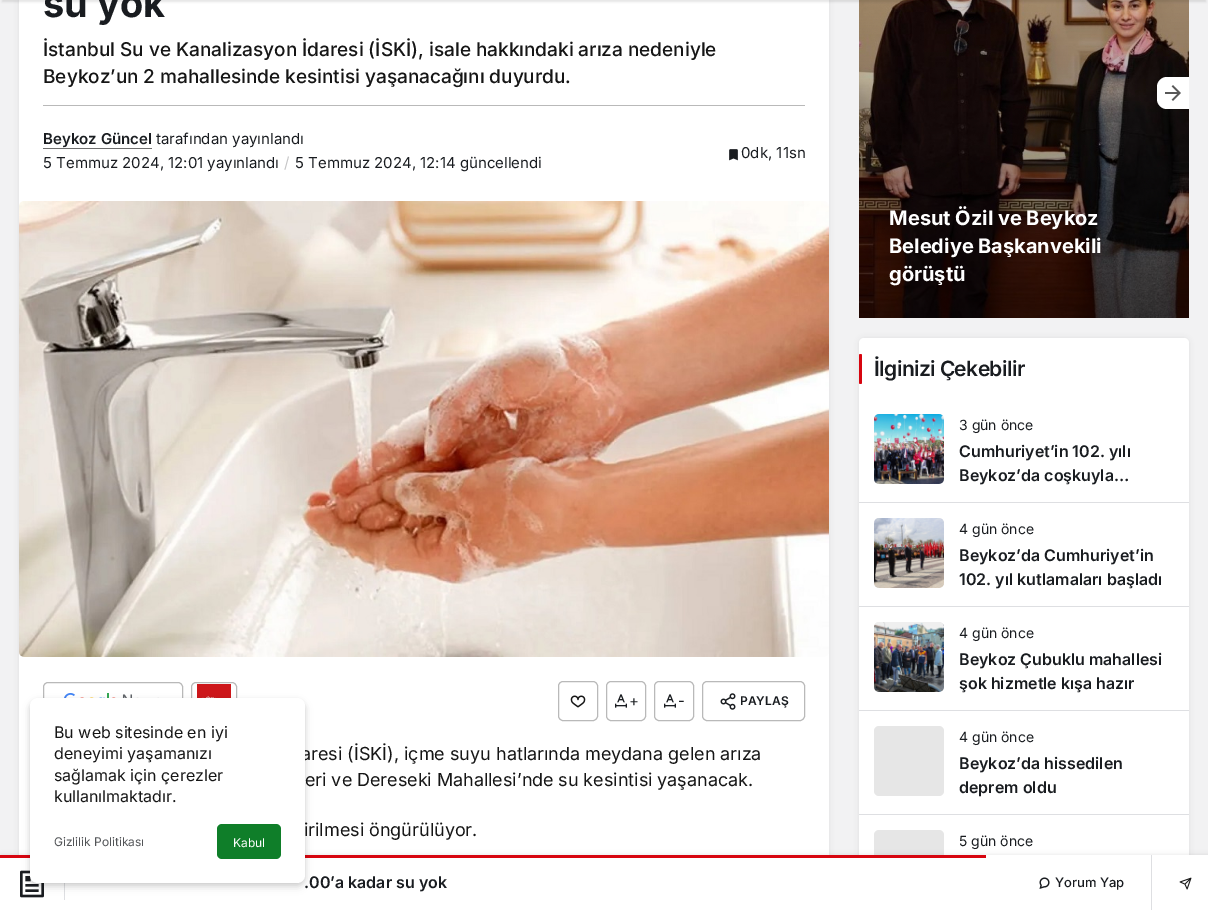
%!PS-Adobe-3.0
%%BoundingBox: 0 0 1208 913
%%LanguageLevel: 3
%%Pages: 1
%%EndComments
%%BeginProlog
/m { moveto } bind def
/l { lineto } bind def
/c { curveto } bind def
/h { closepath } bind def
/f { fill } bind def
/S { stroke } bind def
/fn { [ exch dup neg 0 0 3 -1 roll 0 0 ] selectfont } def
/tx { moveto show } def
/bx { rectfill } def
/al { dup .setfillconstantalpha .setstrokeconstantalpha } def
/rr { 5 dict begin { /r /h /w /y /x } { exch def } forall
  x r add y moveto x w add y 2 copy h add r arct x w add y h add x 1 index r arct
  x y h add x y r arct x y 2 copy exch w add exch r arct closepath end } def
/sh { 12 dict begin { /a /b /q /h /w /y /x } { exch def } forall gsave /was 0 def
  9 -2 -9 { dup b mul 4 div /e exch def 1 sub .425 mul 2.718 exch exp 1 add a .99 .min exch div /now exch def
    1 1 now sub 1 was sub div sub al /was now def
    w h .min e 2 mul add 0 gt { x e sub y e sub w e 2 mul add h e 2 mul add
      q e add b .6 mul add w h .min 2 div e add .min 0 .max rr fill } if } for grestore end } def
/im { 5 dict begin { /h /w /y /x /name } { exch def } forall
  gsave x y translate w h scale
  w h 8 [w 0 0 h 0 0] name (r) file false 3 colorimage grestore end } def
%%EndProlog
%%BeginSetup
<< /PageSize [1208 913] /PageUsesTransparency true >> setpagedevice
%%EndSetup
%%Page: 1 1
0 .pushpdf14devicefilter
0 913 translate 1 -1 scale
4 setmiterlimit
0.949 0.949 0.953 setrgbcolor
0 0 1208 913 bx
0.196 0.208 0.239 setrgbcolor
19 -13 810 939 5 2.5 0.1 sh
1 setgray
19 0 810 855 bx
(image11.raw) 859 0 330 318 im
0 setgray
2 -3 1204 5 0 1 0.1 sh
/Inter-Bold 38 fn
0.098 0.11 0.125 setrgbcolor
(su yok) 43 17 tx
/Inter-Medium 19 fn
0.086 setgray
(İstanbul Su ve Kanalizasyon İdaresi \(İSKİ\), isale hakkındaki arıza nedeniyle) 43 56 tx
(Beykoz’un 2 mahallesinde kesintisi yaşanacağını duyurdu.) 43 83 tx
0.725 setgray
43 105 762 1 bx
/Inter-SemiBold 15 fn
0.098 0.11 0.125 setrgbcolor
(Beykoz Güncel) 43 144 tx
0.431 setgray
43 148 109 1 bx
/Inter-Regular 15 fn
0.098 0.11 0.125 setrgbcolor
(tarafından yayınlandı) 156 144 tx
(5 Temmuz 2024, 12:01 yayınlandı) 43 168 tx
0.776 0.776 0.78 setrgbcolor
(/) 284 168 tx
0.098 0.11 0.125 setrgbcolor
(5 Temmuz 2024, 12:14 güncellendi) 295 168 tx
(image0.raw) 729 149 9 12 im
(0dk, 11sn) 741 158 tx
(image1.raw) 19 201 810 456 im
(image2.raw) 64 693 95 5 im
0.725 setgray
43.5 682.5 139 37 4.5 rr S
191.5 682.5 45 37 4.5 rr S
(image3.raw) 197 684 34 14 im
558.5 681.5 39 39 4.5 rr S
(image4.raw) 570 695 16 13 im
606.5 681.5 39 39 4.5 rr S
(image5.raw) 615 694 12 14 im
0.098 0.11 0.125 setrgbcolor
(+) 629 706 tx
0.725 setgray
654.5 681.5 39 39 4.5 rr S
(image5.raw) 664 694 12 14 im
0.098 0.11 0.125 setrgbcolor
(-) 678 706 tx
0.725 setgray
702.5 681.5 102 39 4.5 rr S
(image6.raw) 720 693 16 17 im
/Inter-SemiBold 12 fn
0.098 0.11 0.125 setrgbcolor
(PAYLAŞ) 740 705 tx
/Inter-Regular 18 fn
0.086 setgray
(aresi \(İSKİ\), içme suyu hatlarında meydana gelen arıza) 301 760 tx
305 786 m -0.25 0 32 (eri ve Dereseki Mahallesi’nde su kesintisi yaşanacak.) widthshow
(irilmesi öngürülüyor.) 304 836 tx
0.196 0.208 0.239 setrgbcolor
859 338 330 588 5 2.5 0.1 sh
1 setgray
859 338 330 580 5 rr f
0.902 setgray
874 830 70 70 5 rr f
0 setgray
1 855 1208 58 0 2.5 0.1 sh
1 setgray
0 855 1208 58 bx
0.843 0.02 0.059 setrgbcolor
0 855 986 3 bx
(image7.raw) 20 870 24 28 im
0.871 0.875 0.886 setrgbcolor
64 883 1 17 bx
/Inter-SemiBold 16 fn
0.098 0.11 0.125 setrgbcolor
(.00’a kadar su yok) 304 888 tx
(image8.raw) 1039 877 11 12 im
/Inter-Medium 13 fn
(Yorum Yap) 1055 887 tx
0.871 0.875 0.886 setrgbcolor
1151 855 1 55 bx
(image9.raw) 1179 877 13 13 im
1 setgray
1167 77 m 1189 77 l 1189 109 l 1167 109 l 1161.5 109 1157 104.5 1157 99 c 1157 87 l 1157 81.5 1161.5 77 1167 77 c h f
(image10.raw) 1165 85 16 16 im
/Inter-Bold 20 fn
(Mesut Özil ve Beykoz) 889 225 tx
(Belediye Başkanvekili) 889 253 tx
(görüştü) 889 281 tx
0.843 0.02 0.059 setrgbcolor
859 354 3 30 1.5 rr f
/Inter-SemiBold 21 fn
0.098 0.11 0.125 setrgbcolor
874 376 m -0.6 0 (İlginizi Çekebilir) ashow
0.871 0.875 0.886 setrgbcolor
859 502 330 1 bx
(image12.raw) 874 414 70 70 im
/Inter-Regular 14 fn
0.098 0.11 0.125 setrgbcolor
(3 gün önce) 959 430 tx
/Inter-SemiBold 16 fn
(Cumhuriyet’in 102. yılı) 959 457 tx
(Beykoz’da coşkuyla…) 959 481 tx
0.871 0.875 0.886 setrgbcolor
859 606 330 1 bx
(image13.raw) 874 518 70 70 im
/Inter-Regular 14 fn
0.098 0.11 0.125 setrgbcolor
(4 gün önce) 959 534 tx
/Inter-SemiBold 16 fn
(Beykoz’da Cumhuriyet’in) 959 561 tx
(102. yıl kutlamaları başladı) 959 585 tx
0.871 0.875 0.886 setrgbcolor
859 710 330 1 bx
(image14.raw) 874 622 70 70 im
/Inter-Regular 14 fn
0.098 0.11 0.125 setrgbcolor
(4 gün önce) 959 638 tx
/Inter-SemiBold 16 fn
(Beykoz Çubuklu mahallesi) 959 665 tx
(şok hizmetle kışa hazır) 959 689 tx
0.871 0.875 0.886 setrgbcolor
859 814 330 1 bx
0.902 setgray
874 726 70 70 5 rr f
/Inter-Regular 14 fn
0.098 0.11 0.125 setrgbcolor
(4 gün önce) 959 742 tx
/Inter-SemiBold 16 fn
(Beykoz’da hissedilen) 959 769 tx
(deprem oldu) 959 793 tx
/Inter-Regular 14 fn
(5 gün önce) 959 846 tx
0 setgray
30 700 275 185 8 2 0.08 sh
30 702 275 185 8 4 0.12 sh
1 setgray
30 698 275 185 8 rr f
/Inter-Regular 16 fn
0.086 setgray
(Bu web sitesinde en iyi) 54 738 tx
(deneyimi yaşamanızı) 54 759 tx
(sağlamak için çerezler) 54 781 tx
(kullanılmaktadır.) 54 802 tx
/Inter-Regular 12 fn
0.325 0.333 0.345 setrgbcolor
(Gizlilik Politikası) 54 846 tx
0.059 0.494 0.161 setrgbcolor
217 824 64 35 5 rr f
1 setgray
(Kabul) 233 847 tx
.poppdf14devicefilter showpage
%%EOF
